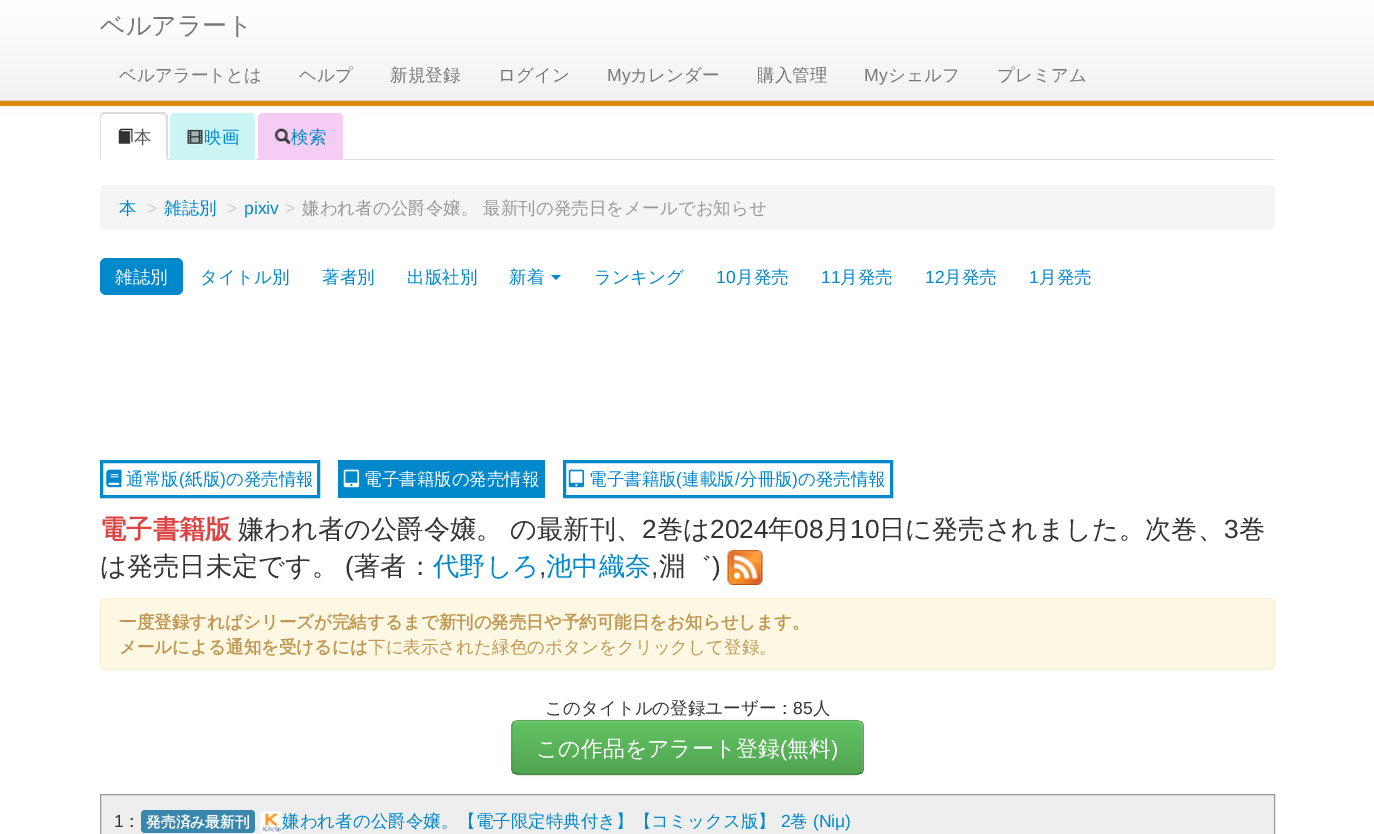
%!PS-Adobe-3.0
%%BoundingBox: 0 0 1374 834
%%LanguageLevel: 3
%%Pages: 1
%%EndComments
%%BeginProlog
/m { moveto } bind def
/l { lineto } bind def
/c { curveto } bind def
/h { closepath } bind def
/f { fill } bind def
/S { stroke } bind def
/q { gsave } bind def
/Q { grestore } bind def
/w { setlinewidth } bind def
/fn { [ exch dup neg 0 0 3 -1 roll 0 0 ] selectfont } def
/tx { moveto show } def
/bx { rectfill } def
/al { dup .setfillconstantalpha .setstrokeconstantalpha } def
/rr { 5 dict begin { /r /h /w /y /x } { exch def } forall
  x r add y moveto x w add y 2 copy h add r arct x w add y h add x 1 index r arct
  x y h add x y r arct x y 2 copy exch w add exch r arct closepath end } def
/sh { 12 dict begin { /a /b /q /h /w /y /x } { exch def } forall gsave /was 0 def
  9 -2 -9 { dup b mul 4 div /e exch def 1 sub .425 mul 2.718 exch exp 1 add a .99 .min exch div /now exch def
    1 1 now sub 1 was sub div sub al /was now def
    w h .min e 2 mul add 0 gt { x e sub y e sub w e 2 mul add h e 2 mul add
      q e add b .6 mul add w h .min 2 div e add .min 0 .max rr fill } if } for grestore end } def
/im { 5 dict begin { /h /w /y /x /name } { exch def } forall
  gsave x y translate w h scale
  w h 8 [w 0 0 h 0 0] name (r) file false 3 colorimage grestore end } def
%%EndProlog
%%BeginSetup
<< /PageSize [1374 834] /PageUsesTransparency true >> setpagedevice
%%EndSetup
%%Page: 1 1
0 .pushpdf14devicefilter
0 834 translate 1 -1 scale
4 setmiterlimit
1 setgray
0 0 1374 834 bx
0.906 0.576 0.008 setrgbcolor
0 101 1374 5 bx
0.867 setgray
105 114 m 102 115 l 101 114 l 103 112 l 164 112 l 166 114 l 165 115 l 162 114 l h f
168 116 m 168 160 l 166 158 l 166 153 167 117 165 115 c 166 114 l h f
100 160 m 101 159 l 101 118 l 101 116 102 115 102 115 c 101 114 l 100 115 100 116 100 118 c h f
168 159 1107 1 bx
0.8 0.957 0.957 setrgbcolor
175 113 m 250 113 l 253 113 255 115 255 118 c 255 160 l 170 160 l 170 118 l 170 115 172 113 175 113 c h f
0.957 0.8 0.957 setrgbcolor
263 113 m 338 113 l 341 113 343 115 343 118 c 343 160 l 258 160 l 258 118 l 258 115 260 113 263 113 c h f
0 setgray
0 1 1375 102 0 6 0.1 sh
q 0 0 m 1374 0 l 1374 100 l 0 100 l h clip newpath
<< /ShadingType 2 /ColorSpace /DeviceRGB /Coords [688 0 688 100] /Extend [true true] /Function << /FunctionType 2 /Domain [0 1] /C0 [1 1 1] /C1 [0.949 0.949 0.949] /N 1 >> >> shfill Q
0.831 setgray
0 100 1374 1 bx
/WenQuanYiZenHei-Medium 25 fn
0.467 setgray
(ベルアラート) 100 34 tx
/WenQuanYiZenHei-Medium 17.5 fn
(ベルアラートとは) 119 81 tx
(ヘルプ) 299 81 tx
(新規登録) 390 81 tx
(ログイン) 498 81 tx
/LiberationSans-Regular 17.5 fn
(My) 607 81 tx
/WenQuanYiZenHei-Medium 17.5 fn
(カレンダー) 630 81 tx
(購入管理) 757 81 tx
/LiberationSans-Regular 17.5 fn
(My) 864 81 tx
/WenQuanYiZenHei-Medium 17.5 fn
(シェルフ) 888 81 tx
(プレミアム) 997 81 tx
(image0.raw) 118 128 15 16 im
0.333 setgray
(本) 134 143 tx
(image1.raw) 187 129 16 16 im
0 0.533 0.8 setrgbcolor
(映画) 204 143 tx
(image2.raw) 274 128 18 17 im
(検索) 291 143 tx
0.961 setgray
100 185 1175 45 5 rr f
0 0.533 0.8 setrgbcolor
(本) 119 214 tx
/LiberationSans-Regular 17.5 fn
0.8 setgray
(>) 147 214 tx
/WenQuanYiZenHei-Medium 17.5 fn
0 0.533 0.8 setrgbcolor
(雑誌別) 164 214 tx
/LiberationSans-Regular 17.5 fn
0.8 setgray
(>) 227 214 tx
0 0.533 0.8 setrgbcolor
(pixiv) 244 214 tx
0.8 setgray
(>) 285 214 tx
/WenQuanYiZenHei-Medium 17.5 fn
0.6 setgray
(嫌われ者の公爵令嬢。 最新刊の発売日をメールでお知らせ) 302 214 tx
0 0.533 0.8 setrgbcolor
100 258 83 37 6 rr f
1 setgray
(雑誌別) 115 283 tx
0 0.533 0.8 setrgbcolor
(タイトル別) 200 283 tx
(著者別) 322 283 tx
(出版社別) 407 283 tx
(新着) 509 283 tx
551 275 m 561 275 l 556 280 l h f
(ランキング) 594 283 tx
/LiberationSans-Regular 17.5 fn
(10) 716 283 tx
/WenQuanYiZenHei-Medium 17.5 fn
(月発売) 736 283 tx
/LiberationSans-Regular 17.5 fn
(11) 821 283 tx
/WenQuanYiZenHei-Medium 17.5 fn
(月発売) 840 283 tx
/LiberationSans-Regular 17.5 fn
(12) 925 283 tx
/WenQuanYiZenHei-Medium 17.5 fn
(月発売) 944 283 tx
/LiberationSans-Regular 17.5 fn
(1) 1029 283 tx
/WenQuanYiZenHei-Medium 17.5 fn
(月発売) 1039 283 tx
3 w
101.5 461.5 217 35 rectstroke
(image3.raw) 106 469 16 19 im
(通常版) 126 485 tx
/LiberationSans-Regular 17.5 fn
(\() 179 485 tx
/WenQuanYiZenHei-Medium 17.5 fn
(紙版) 185 485 tx
/LiberationSans-Regular 17.5 fn
(\)) 220 485 tx
/WenQuanYiZenHei-Medium 17.5 fn
(の発売情報) 226 485 tx
338 460 207 38 bx
(image4.raw) 343 469 17 19 im
1 setgray
(電子書籍版の発売情報) 364 485 tx
0 0.533 0.8 setrgbcolor
564.5 461.5 327 35 rectstroke
(image5.raw) 568 469 17 19 im
(電子書籍版) 589 485 tx
/LiberationSans-Regular 17.5 fn
(\() 676 485 tx
/WenQuanYiZenHei-Medium 17.5 fn
(連載版) 682 485 tx
/LiberationSans-Regular 17.5 fn
(/) 735 485 tx
/WenQuanYiZenHei-Medium 17.5 fn
(分冊版) 740 485 tx
/LiberationSans-Regular 17.5 fn
(\)) 792 485 tx
/WenQuanYiZenHei-Medium 17.5 fn
(の発売情報) 798 485 tx
/WenQuanYiZenHei-Bold 26.25 fn
0.867 0.267 0.267 setrgbcolor
(電子書籍版) 100 538 tx
/WenQuanYiZenHei-Medium 26.25 fn
0.2 setgray
(嫌われ者の公爵令嬢。 の最新刊、) 238 538 tx
/LiberationSans-Regular 26.25 fn
(2) 642 538 tx
/WenQuanYiZenHei-Medium 26.25 fn
(巻は) 657 538 tx
/LiberationSans-Regular 26.25 fn
(2024) 710 538 tx
/WenQuanYiZenHei-Medium 26.25 fn
(年) 768 538 tx
/LiberationSans-Regular 26.25 fn
(08) 794 538 tx
/WenQuanYiZenHei-Medium 26.25 fn
(月) 824 538 tx
/LiberationSans-Regular 26.25 fn
(10) 850 538 tx
/WenQuanYiZenHei-Medium 26.25 fn
(日に発売されました。次巻、) 879 538 tx
/LiberationSans-Regular 26.25 fn
(3) 1224 538 tx
/WenQuanYiZenHei-Medium 26.25 fn
(巻) 1239 538 tx
(は発売日未定です。) 100 575 tx
/LiberationSans-Regular 26.25 fn
(\() 345 575 tx
/WenQuanYiZenHei-Medium 26.25 fn
(著者：) 354 575 tx
0 0.533 0.8 setrgbcolor
(代野しろ) 433 575 tx
/LiberationSans-Regular 26.25 fn
0.2 setgray
(,) 539 575 tx
/WenQuanYiZenHei-Medium 26.25 fn
0 0.533 0.8 setrgbcolor
(池中織奈) 546 575 tx
/LiberationSans-Regular 26.25 fn
0.2 setgray
(,) 651 575 tx
/WenQuanYiZenHei-Medium 26.25 fn
(淵゛) 659 575 tx
/LiberationSans-Regular 26.25 fn
(\)) 712 575 tx
(image6.raw) 727 550 36 35 im
0.988 0.973 0.89 setrgbcolor
100.5 598.5 1174 71 4.5 rr q f Q
0.984 0.933 0.835 setrgbcolor
1 w
S
/WenQuanYiZenHei-Bold 17.5 fn
0.753 0.596 0.325 setrgbcolor
(一度登録すればシリーズが完結するまで新刊の発売日や予約可能日をお知らせします。) 119 628 tx
(メールによる通知を受けるには) 119 653 tx
/WenQuanYiZenHei-Medium 17.5 fn
(下に表示された緑色のボタンをクリックして登録。) 368 653 tx
0.2 setgray
(このタイトルの登録ユーザー：) 545 714 tx
/LiberationSans-Regular 17.5 fn
(85) 793 714 tx
/WenQuanYiZenHei-Medium 17.5 fn
(人) 813 714 tx
0 setgray
511 721 353 55 8 1 0.05 sh
0.357 0.718 0.357 setrgbcolor
511 720 353 55 8 rr f
q
511 720 353 55 8 rr clip newpath
q 511 721 m 864 721 l 864 774 l 511 774 l h clip newpath
<< /ShadingType 2 /ColorSpace /DeviceRGB /Coords [688 721 688 774] /Extend [true true] /Function << /FunctionType 2 /Domain [0 1] /C0 [0.384 0.769 0.384] /C1 [0.318 0.639 0.318] /N 1 >> >> shfill Q
Q
0.2 al
1 setgray
519 722 m 856 722 l 860 722 862 725 862 729 c 862 769 l 862 770 862 771 861 772 c 862 771 863 770 863 768 c 863 727 l 863 724 860 721 857 721 c 519 721 l 517 721 514 722 514 725 c 515 723 517 722 519 722 c h f
0.25 al
0 setgray
1.2 w
861 772.5 m 860 773.5 858 774.5 856 774.5 c 519 774.5 l 517 774.5 515 773.5 514 772.5 c S
0.1 al
514 772.5 m 512.5 771 512 769.5 512 767.5 c 512 727.5 l 512 725.5 512.5 724 514 722.5 c 515 721.5 517 720.5 519 720.5 c 856 720.5 l 858 720.5 860 721.5 861 722.5 c 862.5 724 863 725.5 863 727.5 c 863 767.5 l 863 769.5 862.5 771 861 772.5 c S
/WenQuanYiZenHei-Medium 21.9 fn
1 al
1 setgray
(この作品をアラート登録) 536 756 tx
/LiberationSans-Regular 21.9 fn
(\() 780 756 tx
/WenQuanYiZenHei-Medium 21.9 fn
(無料) 787 756 tx
/LiberationSans-Regular 21.9 fn
(\)) 831 756 tx
0.933 setgray
100.5 794.5 m 1274.5 794.5 l 1274.5 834.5 l 100.5 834.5 l h q f Q
0.6 setgray
1 w
S
/LiberationSans-Regular 17.5 fn
0.2 setgray
(1) 114 827 tx
/WenQuanYiZenHei-Medium 17.5 fn
(：) 123 827 tx
0.227 0.529 0.678 setrgbcolor
141 810 114 23 4 rr f
/WenQuanYiZenHei-Bold 14.75 fn
1 setgray
(発売済み最新刊) 146 827 tx
(image7.raw) 260 811 23 23 im
/WenQuanYiZenHei-Medium 17.5 fn
0 0.533 0.8 setrgbcolor
(嫌われ者の公爵令嬢。【電子限定特典付き】【コミックス版】) 282 827 tx
/LiberationSans-Regular 17.5 fn
(2) 781 827 tx
/WenQuanYiZenHei-Medium 17.5 fn
(巻) 790 827 tx
/LiberationSans-Regular 17.5 fn
(\(Niμ\)) 813 827 tx
.poppdf14devicefilter showpage
%%EOF
